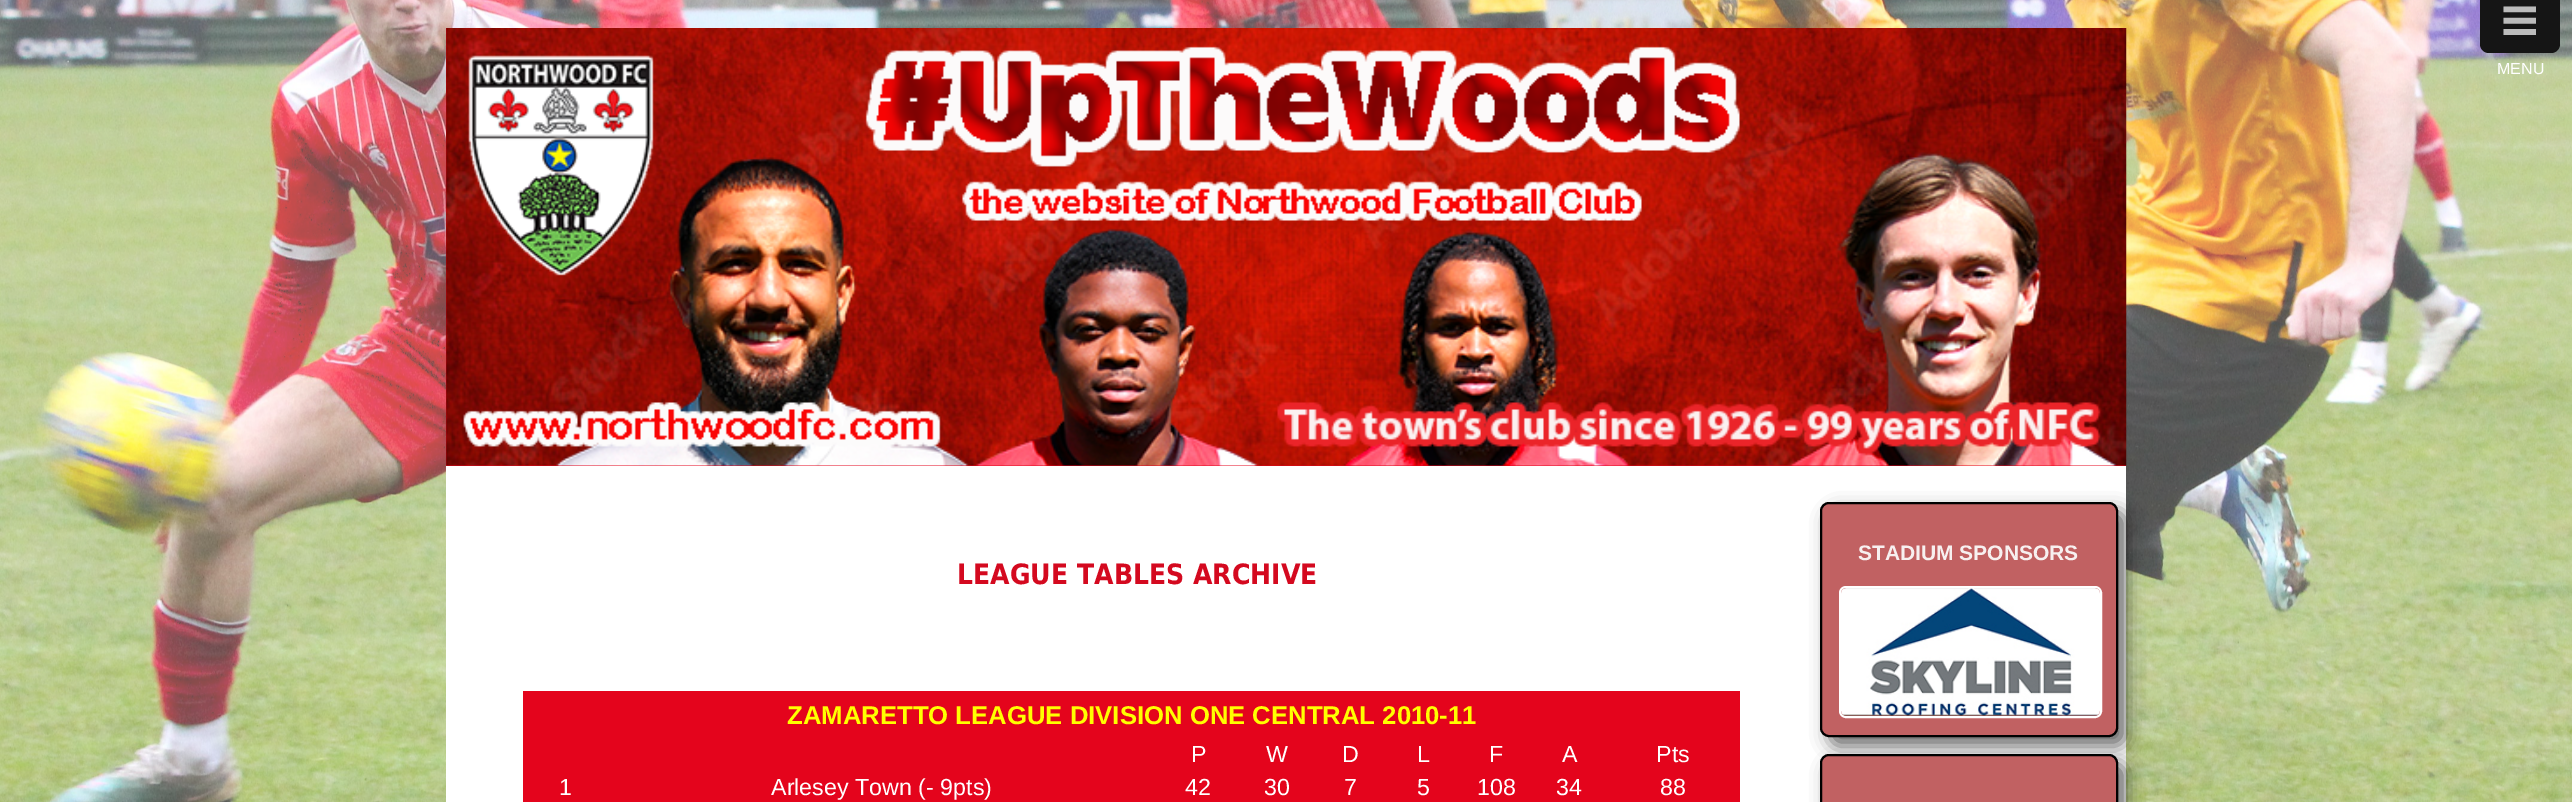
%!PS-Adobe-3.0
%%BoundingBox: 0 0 2572 802
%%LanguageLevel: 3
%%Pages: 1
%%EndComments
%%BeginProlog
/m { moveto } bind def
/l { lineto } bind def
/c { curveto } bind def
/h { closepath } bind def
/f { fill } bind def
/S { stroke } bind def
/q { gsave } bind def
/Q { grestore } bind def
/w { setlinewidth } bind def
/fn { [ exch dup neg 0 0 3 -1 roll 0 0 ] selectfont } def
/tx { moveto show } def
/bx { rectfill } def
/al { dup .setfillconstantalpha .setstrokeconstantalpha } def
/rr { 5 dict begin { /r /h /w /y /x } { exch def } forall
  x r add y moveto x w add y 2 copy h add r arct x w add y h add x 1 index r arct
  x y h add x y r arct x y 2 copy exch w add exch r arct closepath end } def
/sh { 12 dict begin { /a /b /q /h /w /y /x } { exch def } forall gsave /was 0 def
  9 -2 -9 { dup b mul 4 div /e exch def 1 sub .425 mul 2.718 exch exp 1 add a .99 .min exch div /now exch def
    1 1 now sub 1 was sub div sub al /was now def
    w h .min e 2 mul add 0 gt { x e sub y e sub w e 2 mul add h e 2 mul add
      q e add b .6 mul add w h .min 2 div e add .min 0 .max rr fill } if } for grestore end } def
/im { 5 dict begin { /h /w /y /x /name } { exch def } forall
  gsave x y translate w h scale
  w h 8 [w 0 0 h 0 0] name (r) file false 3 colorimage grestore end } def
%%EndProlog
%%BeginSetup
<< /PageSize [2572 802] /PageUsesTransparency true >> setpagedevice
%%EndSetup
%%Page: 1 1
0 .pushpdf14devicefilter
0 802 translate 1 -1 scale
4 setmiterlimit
1 setgray
0 0 2572 802 bx
(image0.raw) 0 0 2572 802 im
0.082 setgray
2480 0 m 2560 0 l 2560 44 l 2560 49 2556 53 2551 53 c 2489 53 l 2484 53 2480 49 2480 44 c h f
/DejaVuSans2-Bold 52 fn
0.733 setgray
(≡) 2498 37 tx
/LiberationSans-Regular 16 fn
1 setgray
(MENU) 2497 74 tx
446 466 1680 336 bx
0.894 0.016 0.11 setrgbcolor
446 28 1680 438 bx
(image1.raw) 446 28 1681 438 im
0 setgray
1829 511 297 235 9 9 0.6 sh
0.757 0.38 0.384 setrgbcolor
1821 503 296 233 8 rr q f Q
0 setgray
2 w
S
/LiberationSans-Bold 21 fn
0.969 0.941 0.941 setrgbcolor
(STADIUM SPONSORS) 1858 560 tx
1 setgray
1840 587 261 130 6 rr S
(image2.raw) 1841 588 259 128 im
0 setgray
1829 763 297 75 9 9 0.6 sh
0.757 0.38 0.384 setrgbcolor
1821 755 296 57 8 rr q f Q
0 setgray
S
/DejaVuSans-Bold 28 fn
0.831 0.035 0.122 setrgbcolor
(LEAGUE TABLES ARCHIVE) 957 584 tx
0.894 0.016 0.11 setrgbcolor
523 691 1217 111 bx
/LiberationSans-Bold 25.7 fn
1 1 0 setrgbcolor
(ZAMARETTO LEAGUE DIVISION ONE CENTRAL 2010-11) 787 724 tx
/LiberationSans-Regular 23.25 fn
1 setgray
(P) 1191 762 tx
(W) 1266 762 tx
(D) 1342 762 tx
(L) 1417 762 tx
(F) 1489 762 tx
(A) 1562 762 tx
(Pts) 1656 762 tx
(1) 559 795 tx
(Arlesey Town \(- 9pts\)) 771 795 tx
(42) 1185 795 tx
(30) 1264 795 tx
(7) 1344 795 tx
(5) 1417 795 tx
(108) 1477 795 tx
(34) 1556 795 tx
(88) 1660 795 tx
.poppdf14devicefilter showpage
%%EOF
